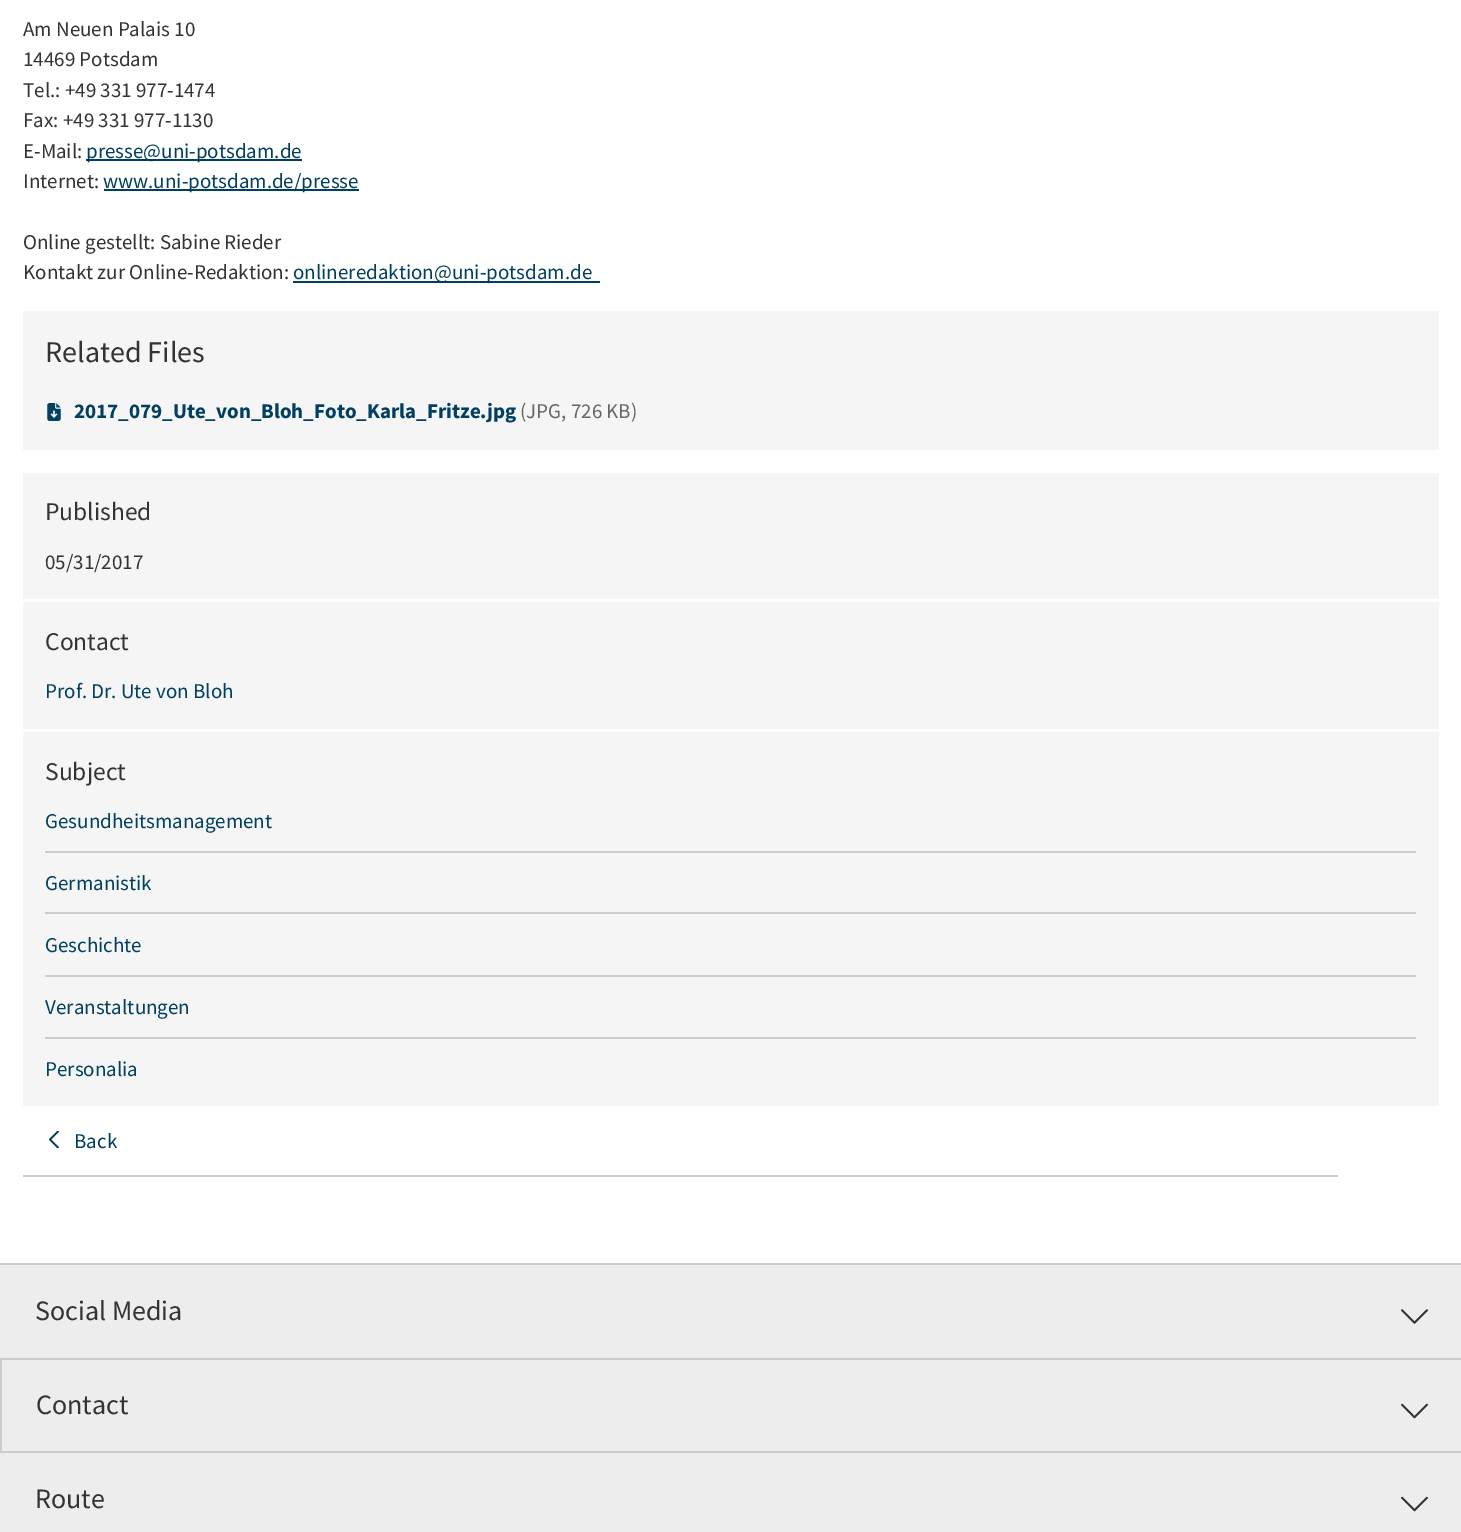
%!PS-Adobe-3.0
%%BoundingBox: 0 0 1461 1532
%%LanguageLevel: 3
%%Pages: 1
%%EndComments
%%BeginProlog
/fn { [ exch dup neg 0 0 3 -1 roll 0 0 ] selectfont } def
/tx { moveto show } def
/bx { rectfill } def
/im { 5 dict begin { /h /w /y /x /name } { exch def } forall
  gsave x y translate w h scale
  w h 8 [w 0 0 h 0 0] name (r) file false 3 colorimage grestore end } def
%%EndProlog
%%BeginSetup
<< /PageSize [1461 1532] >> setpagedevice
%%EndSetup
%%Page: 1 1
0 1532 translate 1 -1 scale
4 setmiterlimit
1 setgray
0 0 1461 1532 bx
/SourceSansPro-Regular 21 fn
0.2 setgray
(Am Neuen Palais 10) 23 36 tx
(14469 Potsdam) 23 66 tx
(Tel.: +49 331 977-1474) 23 97 tx
(Fax: +49 331 977-1130) 23 127 tx
(E-Mail:) 23 158 tx
0 0.247 0.376 setrgbcolor
86 159 216 2 bx
(presse@uni-potsdam.de) 86 158 tx
0.2 setgray
(Internet:) 23 188 tx
0 0.247 0.376 setrgbcolor
104 189 255 2 bx
(www.uni-potsdam.de/presse) 103 188 tx
0.2 setgray
(Online gestellt: Sabine Rieder) 23 249 tx
(Kontakt zur Online-Redaktion:) 23 279 tx
0 0.247 0.376 setrgbcolor
293 281 307 2 bx
(onlineredaktion@uni-potsdam.de) 293 279 tx
0.961 setgray
23 311 1416 139 bx
/SourceSansPro-Regular 30 fn
0.2 setgray
(Related Files) 45 362 tx
(image0.raw) 47 403 14 18 im
/SourceSansPro-Bold 21 fn
0 0.247 0.376 setrgbcolor
(2017_079_Ute_von_Bloh_Foto_Karla_Fritze.jpg) 74 418 tx
/SourceSansPro-Regular 21 fn
0.4 setgray
(\(JPG, 726 KB\)) 520 418 tx
0.961 setgray
23 473 1416 126 bx
/SourceSansPro-Regular 25.5 fn
0.2 setgray
(Published) 45 520 tx
/SourceSansPro-Regular 21 fn
(05/31/2017) 45 569 tx
0.961 setgray
23 602 1416 127 bx
/SourceSansPro-Regular 25.5 fn
0.2 setgray
(Contact) 45 650 tx
/SourceSansPro-Regular 21 fn
0 0.247 0.376 setrgbcolor
(Prof. Dr. Ute von Bloh) 45 698 tx
0.961 setgray
23 732 1416 374 bx
/SourceSansPro-Regular 25.5 fn
0.2 setgray
(Subject) 45 780 tx
/SourceSansPro-Regular 21 fn
0 0.247 0.376 setrgbcolor
(Gesundheitsmanagement) 45 828 tx
0.8 setgray
45 851 1371 2 bx
0 0.247 0.376 setrgbcolor
(Germanistik) 45 890 tx
0.8 setgray
45 912 1371 2 bx
0 0.247 0.376 setrgbcolor
(Geschichte) 45 952 tx
0.8 setgray
45 975 1371 2 bx
0 0.247 0.376 setrgbcolor
(Veranstaltungen) 45 1014 tx
0.8 setgray
45 1037 1371 2 bx
0 0.247 0.376 setrgbcolor
(Personalia) 45 1076 tx
0.8 setgray
23 1175 1315 2 bx
(image1.raw) 49 1131 10 18 im
0 0.247 0.376 setrgbcolor
(Back) 74 1148 tx
0.929 setgray
0 1265 1461 267 bx
0.8 setgray
0 1263 1461 2 bx
0 1358 1461 2 bx
/SourceSansPro-Regular 28 fn
0.2 setgray
(Social Media) 35 1320 tx
(image2.raw) 1401 1309 27 15 im
0.8 setgray
0 1451 1461 2 bx
0 1359 2 93 bx
0.2 setgray
(Contact) 36 1414 tx
(image3.raw) 1401 1403 27 16 im
(Route) 35 1508 tx
(image3.raw) 1401 1496 27 16 im
showpage
%%EOF
